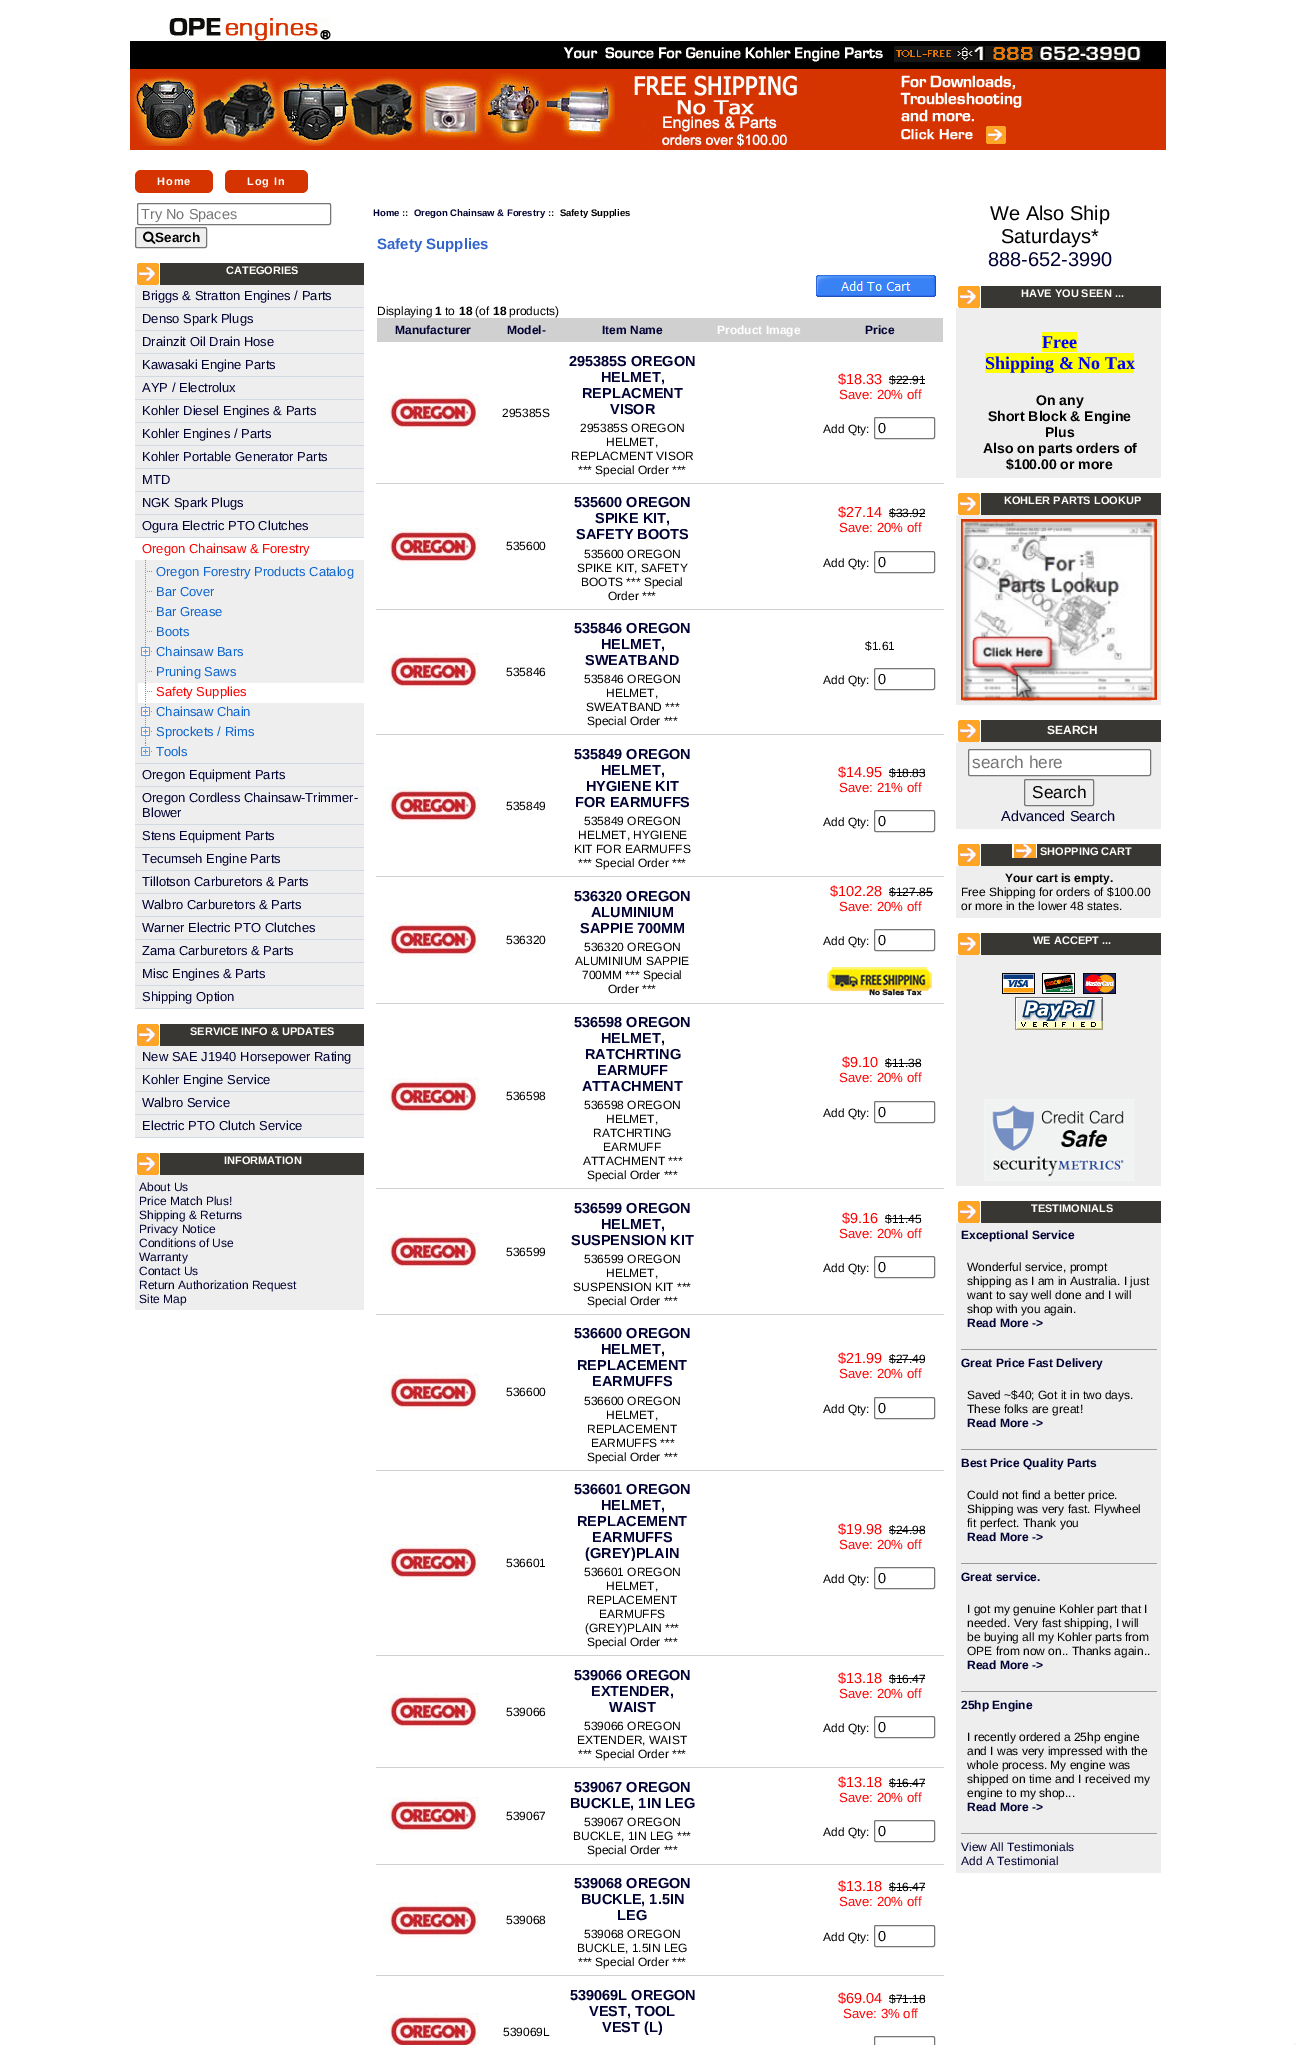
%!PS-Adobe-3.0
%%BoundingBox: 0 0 1296 2045
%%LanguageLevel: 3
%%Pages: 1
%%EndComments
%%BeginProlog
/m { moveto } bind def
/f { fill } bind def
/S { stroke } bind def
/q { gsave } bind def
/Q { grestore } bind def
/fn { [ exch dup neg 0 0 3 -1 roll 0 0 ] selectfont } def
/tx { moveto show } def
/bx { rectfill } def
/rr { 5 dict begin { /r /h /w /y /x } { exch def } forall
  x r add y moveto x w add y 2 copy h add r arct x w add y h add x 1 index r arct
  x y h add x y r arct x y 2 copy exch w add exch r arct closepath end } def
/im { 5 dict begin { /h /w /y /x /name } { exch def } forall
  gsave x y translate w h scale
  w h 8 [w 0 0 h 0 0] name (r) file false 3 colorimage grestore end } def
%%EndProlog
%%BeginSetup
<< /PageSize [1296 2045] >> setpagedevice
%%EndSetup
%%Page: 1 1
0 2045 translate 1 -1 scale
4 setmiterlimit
1 setgray
0 0 1296 2045 bx
(image0.raw) 169 18 162 23 im
0 setgray
130 41 1036 28 bx
(image1.raw) 563 46 578 16 im
0.835 0.204 0 setrgbcolor
130 69 1036 81 bx
(image2.raw) 130 73 485 73 im
(image3.raw) 630 69 173 81 im
(image4.raw) 900 75 122 69 im
135 170 78 23 6 rr f
/LiberationSans-Bold 11 fn
1 setgray
157 185 m 1 0 (Home) ashow
0.835 0.204 0 setrgbcolor
225 170 83 23 6 rr f
1 setgray
247 185 m 1 0 (Log In) ashow
0.463 setgray
137.5 203.5 193 21 1.5 rr S
/LiberationSans-Regular 14.5 fn
0.459 setgray
(Try No Spaces) 141 219 tx
0.937 setgray
135.5 227.5 71 20 1.5 rr q f Q
0.463 setgray
S
(image5.raw) 143 231 13 13 im
/LiberationSans-Bold 13.5 fn
0 setgray
(Search) 155 242 tx
0.224 0.216 0.2 setrgbcolor
160 263 204 22 bx
(image6.raw) 135 263 25 22 im
/LiberationSans-Bold 11 fn
1 setgray
(CATEGORIES) 226 274 tx
0.827 0.851 0.89 setrgbcolor
135 307 229 1 bx
0.933 setgray
135 285 229 22 bx
/LiberationSans-Regular 13 fn
0 0 0.2 setrgbcolor
(Briggs & Stratton Engines / Parts) 142 300 tx
0.827 0.851 0.89 setrgbcolor
135 330 229 1 bx
0.933 setgray
135 308 229 22 bx
0 0 0.2 setrgbcolor
(Denso Spark Plugs) 142 323 tx
0.827 0.851 0.89 setrgbcolor
135 353 229 1 bx
0.933 setgray
135 331 229 22 bx
0 0 0.2 setrgbcolor
(Drainzit Oil Drain Hose) 142 346 tx
0.827 0.851 0.89 setrgbcolor
135 376 229 1 bx
0.933 setgray
135 354 229 22 bx
0 0 0.2 setrgbcolor
(Kawasaki Engine Parts) 142 369 tx
0.827 0.851 0.89 setrgbcolor
135 399 229 1 bx
0.933 setgray
135 377 229 22 bx
0 0 0.2 setrgbcolor
(AYP / Electrolux) 142 392 tx
0.827 0.851 0.89 setrgbcolor
135 422 229 1 bx
0.933 setgray
135 400 229 22 bx
0 0 0.2 setrgbcolor
(Kohler Diesel Engines & Parts) 142 415 tx
0.827 0.851 0.89 setrgbcolor
135 445 229 1 bx
0.933 setgray
135 423 229 22 bx
0 0 0.2 setrgbcolor
(Kohler Engines / Parts) 142 438 tx
0.827 0.851 0.89 setrgbcolor
135 468 229 1 bx
0.933 setgray
135 446 229 22 bx
0 0 0.2 setrgbcolor
(Kohler Portable Generator Parts) 142 461 tx
0.827 0.851 0.89 setrgbcolor
135 491 229 1 bx
0.933 setgray
135 469 229 22 bx
0 0 0.2 setrgbcolor
(MTD) 142 484 tx
0.827 0.851 0.89 setrgbcolor
135 514 229 1 bx
0.933 setgray
135 492 229 22 bx
0 0 0.2 setrgbcolor
(NGK Spark Plugs) 142 507 tx
0.827 0.851 0.89 setrgbcolor
135 537 229 1 bx
0.933 setgray
135 515 229 22 bx
0 0 0.2 setrgbcolor
(Ogura Electric PTO Clutches) 142 530 tx
0.827 0.851 0.89 setrgbcolor
135 763 229 1 bx
1 0 0 setrgbcolor
(Oregon Chainsaw & Forestry) 142 553 tx
0.933 setgray
135 560 229 203 bx
(image7.raw) 145 560 1 183 im
(image8.raw) 147 571 5 1 im
0.055 0.396 0.808 setrgbcolor
(Oregon Forestry Products Catalog) 156 576 tx
(image8.raw) 147 591 5 1 im
(Bar Cover) 156 596 tx
(image8.raw) 147 611 5 1 im
(Bar Grease) 156 616 tx
(image8.raw) 147 631 5 1 im
(Boots) 156 636 tx
(image9.raw) 141 647 11 9 im
(Chainsaw Bars) 156 656 tx
(image8.raw) 147 671 5 1 im
(Pruning Saws) 156 676 tx
1 setgray
138 683 226 20 bx
(image10.raw) 145 683 7 19 im
1 0 0 setrgbcolor
(Safety Supplies) 156 696 tx
(image9.raw) 141 707 11 9 im
0.055 0.396 0.808 setrgbcolor
(Chainsaw Chain) 156 716 tx
(image9.raw) 141 727 11 9 im
(Sprockets / Rims) 156 736 tx
(image11.raw) 141 743 11 13 im
(Tools) 156 756 tx
0.827 0.851 0.89 setrgbcolor
135 786 229 1 bx
0.933 setgray
135 764 229 22 bx
0 0 0.2 setrgbcolor
(Oregon Equipment Parts) 142 779 tx
0.827 0.851 0.89 setrgbcolor
135 824 229 1 bx
0.933 setgray
135 787 229 37 bx
0 0 0.2 setrgbcolor
(Oregon Cordless Chainsaw-Trimmer-) 142 802 tx
(Blower) 142 817 tx
0.827 0.851 0.89 setrgbcolor
135 847 229 1 bx
0.933 setgray
135 825 229 22 bx
0 0 0.2 setrgbcolor
(Stens Equipment Parts) 142 840 tx
0.827 0.851 0.89 setrgbcolor
135 870 229 1 bx
0.933 setgray
135 848 229 22 bx
0 0 0.2 setrgbcolor
(Tecumseh Engine Parts) 142 863 tx
0.827 0.851 0.89 setrgbcolor
135 893 229 1 bx
0.933 setgray
135 871 229 22 bx
0 0 0.2 setrgbcolor
(Tillotson Carburetors & Parts) 142 886 tx
0.827 0.851 0.89 setrgbcolor
135 916 229 1 bx
0.933 setgray
135 894 229 22 bx
0 0 0.2 setrgbcolor
(Walbro Carburetors & Parts) 142 909 tx
0.827 0.851 0.89 setrgbcolor
135 939 229 1 bx
0.933 setgray
135 917 229 22 bx
0 0 0.2 setrgbcolor
(Warner Electric PTO Clutches) 142 932 tx
0.827 0.851 0.89 setrgbcolor
135 962 229 1 bx
0.933 setgray
135 940 229 22 bx
0 0 0.2 setrgbcolor
(Zama Carburetors & Parts) 142 955 tx
0.827 0.851 0.89 setrgbcolor
135 985 229 1 bx
0.933 setgray
135 963 229 22 bx
0 0 0.2 setrgbcolor
(Misc Engines & Parts) 142 978 tx
0.933 setgray
135 986 229 22 bx
0.827 0.851 0.89 setrgbcolor
135 1008 229 1 bx
0 0 0.2 setrgbcolor
(Shipping Option) 142 1001 tx
0.224 0.216 0.2 setrgbcolor
160 1024 204 22 bx
(image6.raw) 135 1024 25 22 im
/LiberationSans-Bold 11 fn
1 setgray
(SERVICE INFO & UPDATES) 190 1035 tx
0.827 0.851 0.89 setrgbcolor
135 1068 229 1 bx
0.933 setgray
135 1046 229 22 bx
/LiberationSans-Regular 13 fn
0 0 0.2 setrgbcolor
(New SAE J1940 Horsepower Rating) 142 1061 tx
0.827 0.851 0.89 setrgbcolor
135 1091 229 1 bx
0.933 setgray
135 1069 229 22 bx
0 0 0.2 setrgbcolor
(Kohler Engine Service) 142 1084 tx
0.827 0.851 0.89 setrgbcolor
135 1114 229 1 bx
0.933 setgray
135 1092 229 22 bx
0 0 0.2 setrgbcolor
(Walbro Service) 142 1107 tx
0.933 setgray
135 1115 229 22 bx
0.827 0.851 0.89 setrgbcolor
135 1137 229 1 bx
0 0 0.2 setrgbcolor
(Electric PTO Clutch Service) 142 1130 tx
0.224 0.216 0.2 setrgbcolor
160 1153 204 22 bx
(image6.raw) 135 1153 25 22 im
/LiberationSans-Bold 11 fn
1 setgray
(INFORMATION) 224 1164 tx
0.933 setgray
135 1175 229 135 bx
/LiberationSans-Regular 12 fn
0 0 0.2 setrgbcolor
(About Us) 139 1191 tx
(Price Match Plus!) 139 1205 tx
(Shipping & Returns) 139 1219 tx
(Privacy Notice) 139 1233 tx
(Conditions of Use) 139 1247 tx
(Warranty) 139 1261 tx
(Contact Us) 139 1275 tx
(Return Authorization Request) 139 1289 tx
(Site Map) 139 1303 tx
/LiberationSans-Bold 9.5 fn
(Home) 373 216 tx
0 setgray
(::) 402 216 tx
0 0 0.2 setrgbcolor
(Oregon Chainsaw & Forestry) 414 216 tx
0 setgray
(::  Safety Supplies) 548 216 tx
/LiberationSans-Bold 15 fn
0.2 0.4 0.8 setrgbcolor
(Safety Supplies) 377 249 tx
(image12.raw) 816 275 120 22 im
/LiberationSans-Regular 12 fn
0 setgray
(Displaying) 377 315 tx
/LiberationSans-Bold 12 fn
(1) 435 315 tx
/LiberationSans-Regular 12 fn
(to) 445 315 tx
/LiberationSans-Bold 12 fn
(18) 459 315 tx
/LiberationSans-Regular 12 fn
(\(of) 475 315 tx
/LiberationSans-Bold 12 fn
(18) 493 315 tx
/LiberationSans-Regular 12 fn
(products\)) 509 315 tx
0.816 setgray
377 318 566 24 bx
/LiberationSans-Bold 12 fn
0 0 0.2 setrgbcolor
(Manufacturer) 395 334 tx
(Model-) 507 334 tx
(Item Name) 602 334 tx
1 setgray
(Product Image) 717 334 tx
0 0 0.2 setrgbcolor
(Price) 865 334 tx
(image13.raw) 383 394 97 36 im
/LiberationSans-Regular 12 fn
0 setgray
(295385S) 502 417 tx
/LiberationSans-Bold 14.5 fn
0 0 0.2 setrgbcolor
(295385S OREGON) 569 366 tx
(HELMET,) 601 382 tx
(REPLACMENT) 582 398 tx
(VISOR) 610 414 tx
/LiberationSans-Regular 12 fn
0 setgray
(295385S OREGON) 580 432 tx
(HELMET,) 606 446 tx
(REPLACMENT VISOR) 571 460 tx
(*** Special Order ***) 578 474 tx
0.816 setgray
376 483 568 1 bx
/LiberationSans-Regular 14.5 fn
1 0 0 setrgbcolor
($18.33) 838 384 tx
/LiberationSans-Regular 12 fn
0 setgray
($22.91) 889 384 tx
889 379 36 1 bx
/LiberationSans-Regular 13.25 fn
1 0 0 setrgbcolor
(Save: 20% off) 839 399 tx
/LiberationSans-Regular 12 fn
0 setgray
(Add Qty:) 823 433 tx
0.463 setgray
874.5 417.5 60 21 1.5 rr S
/LiberationSans-Regular 14.5 fn
0 setgray
(0) 878 433 tx
(image13.raw) 383 528 97 36 im
/LiberationSans-Regular 12 fn
(535600) 506 550 tx
/LiberationSans-Bold 14.5 fn
0 0 0.2 setrgbcolor
(535600 OREGON) 574 507 tx
(SPIKE KIT,) 595 523 tx
(SAFETY BOOTS) 576 539 tx
/LiberationSans-Regular 12 fn
0 setgray
(535600 OREGON) 584 558 tx
(SPIKE KIT, SAFETY) 577 572 tx
(BOOTS *** Special) 581 586 tx
(Order ***) 608 600 tx
0.816 setgray
376 609 568 1 bx
/LiberationSans-Regular 14.5 fn
1 0 0 setrgbcolor
($27.14) 838 517 tx
/LiberationSans-Regular 12 fn
0 setgray
($33.92) 889 517 tx
889 513 36 1 bx
/LiberationSans-Regular 13.25 fn
1 0 0 setrgbcolor
(Save: 20% off) 839 532 tx
/LiberationSans-Regular 12 fn
0 setgray
(Add Qty:) 823 567 tx
0.463 setgray
874.5 551.5 60 21 1.5 rr S
/LiberationSans-Regular 14.5 fn
0 setgray
(0) 878 567 tx
(image13.raw) 383 653 97 36 im
/LiberationSans-Regular 12 fn
(535846) 506 676 tx
/LiberationSans-Bold 14.5 fn
0 0 0.2 setrgbcolor
(535846 OREGON) 574 633 tx
(HELMET,) 601 649 tx
(SWEATBAND) 585 665 tx
/LiberationSans-Regular 12 fn
0 setgray
(535846 OREGON) 584 683 tx
(HELMET,) 606 697 tx
(SWEATBAND ***) 586 711 tx
(Special Order ***) 587 725 tx
0.816 setgray
376 734 568 1 bx
0 setgray
($1.61) 865 650 tx
(Add Qty:) 823 684 tx
0.463 setgray
874.5 668.5 60 21 1.5 rr S
/LiberationSans-Regular 14.5 fn
0 setgray
(0) 878 684 tx
(image13.raw) 383 787 97 36 im
/LiberationSans-Regular 12 fn
(535849) 506 810 tx
/LiberationSans-Bold 14.5 fn
0 0 0.2 setrgbcolor
(535849 OREGON) 574 759 tx
(HELMET,) 601 775 tx
(HYGIENE KIT) 586 791 tx
(FOR EARMUFFS) 575 807 tx
/LiberationSans-Regular 12 fn
0 setgray
(535849 OREGON) 584 825 tx
(HELMET, HYGIENE) 578 839 tx
(KIT FOR EARMUFFS) 574 853 tx
(*** Special Order ***) 578 867 tx
0.816 setgray
376 876 568 1 bx
/LiberationSans-Regular 14.5 fn
1 0 0 setrgbcolor
($14.95) 838 777 tx
/LiberationSans-Regular 12 fn
0 setgray
($18.83) 889 777 tx
889 772 36 1 bx
/LiberationSans-Regular 13.25 fn
1 0 0 setrgbcolor
(Save: 21% off) 839 792 tx
/LiberationSans-Regular 12 fn
0 setgray
(Add Qty:) 823 826 tx
0.463 setgray
874.5 810.5 60 21 1.5 rr S
/LiberationSans-Regular 14.5 fn
0 setgray
(0) 878 826 tx
(image13.raw) 383 921 97 36 im
/LiberationSans-Regular 12 fn
(536320) 506 944 tx
/LiberationSans-Bold 14.5 fn
0 0 0.2 setrgbcolor
(536320 OREGON) 574 901 tx
(ALUMINIUM) 591 917 tx
(SAPPIE 700MM) 580 933 tx
/LiberationSans-Regular 12 fn
0 setgray
(536320 OREGON) 584 951 tx
(ALUMINIUM SAPPIE) 575 965 tx
(700MM *** Special) 582 979 tx
(Order ***) 608 993 tx
0.816 setgray
376 1003 568 1 bx
/LiberationSans-Regular 14.5 fn
1 0 0 setrgbcolor
($102.28) 830 896 tx
/LiberationSans-Regular 12 fn
0 setgray
($127.85) 889 896 tx
889 892 44 1 bx
/LiberationSans-Regular 13.25 fn
1 0 0 setrgbcolor
(Save: 20% off) 839 911 tx
/LiberationSans-Regular 12 fn
0 setgray
(Add Qty:) 823 945 tx
0.463 setgray
874.5 929.5 60 21 1.5 rr S
/LiberationSans-Regular 14.5 fn
0 setgray
(0) 878 945 tx
(image14.raw) 827 967 105 29 im
(image13.raw) 383 1078 97 36 im
/LiberationSans-Regular 12 fn
(536598) 506 1100 tx
/LiberationSans-Bold 14.5 fn
0 0 0.2 setrgbcolor
(536598 OREGON) 574 1027 tx
(HELMET,) 601 1043 tx
(RATCHRTING) 585 1059 tx
(EARMUFF) 597 1075 tx
(ATTACHMENT) 582 1091 tx
/LiberationSans-Regular 12 fn
0 setgray
(536598 OREGON) 584 1109 tx
(HELMET,) 606 1123 tx
(RATCHRTING) 593 1137 tx
(EARMUFF) 603 1151 tx
(ATTACHMENT ***) 583 1165 tx
(Special Order ***) 587 1179 tx
0.816 setgray
376 1188 568 1 bx
/LiberationSans-Regular 14.5 fn
1 0 0 setrgbcolor
($9.10) 842 1067 tx
/LiberationSans-Regular 12 fn
0 setgray
($11.38) 885 1067 tx
885 1063 36 1 bx
/LiberationSans-Regular 13.25 fn
1 0 0 setrgbcolor
(Save: 20% off) 839 1082 tx
/LiberationSans-Regular 12 fn
0 setgray
(Add Qty:) 823 1117 tx
0.463 setgray
874.5 1101.5 60 21 1.5 rr S
/LiberationSans-Regular 14.5 fn
0 setgray
(0) 878 1117 tx
(image13.raw) 383 1233 97 36 im
/LiberationSans-Regular 12 fn
(536599) 506 1256 tx
/LiberationSans-Bold 14.5 fn
0 0 0.2 setrgbcolor
(536599 OREGON) 574 1213 tx
(HELMET,) 601 1229 tx
(SUSPENSION KIT) 571 1245 tx
/LiberationSans-Regular 12 fn
0 setgray
(536599 OREGON) 584 1263 tx
(HELMET,) 606 1277 tx
(SUSPENSION KIT ***) 573 1291 tx
(Special Order ***) 587 1305 tx
0.816 setgray
376 1314 568 1 bx
/LiberationSans-Regular 14.5 fn
1 0 0 setrgbcolor
($9.16) 842 1223 tx
/LiberationSans-Regular 12 fn
0 setgray
($11.45) 885 1223 tx
885 1218 36 1 bx
/LiberationSans-Regular 13.25 fn
1 0 0 setrgbcolor
(Save: 20% off) 839 1238 tx
/LiberationSans-Regular 12 fn
0 setgray
(Add Qty:) 823 1272 tx
0.463 setgray
874.5 1256.5 60 21 1.5 rr S
/LiberationSans-Regular 14.5 fn
0 setgray
(0) 878 1272 tx
(image13.raw) 383 1374 97 36 im
/LiberationSans-Regular 12 fn
(536600) 506 1396 tx
/LiberationSans-Bold 14.5 fn
0 0 0.2 setrgbcolor
(536600 OREGON) 574 1338 tx
(HELMET,) 601 1354 tx
(REPLACEMENT) 577 1370 tx
(EARMUFFS) 592 1386 tx
/LiberationSans-Regular 12 fn
0 setgray
(536600 OREGON) 584 1405 tx
(HELMET,) 606 1419 tx
(REPLACEMENT) 587 1433 tx
(EARMUFFS ***) 591 1447 tx
(Special Order ***) 587 1461 tx
0.816 setgray
376 1470 568 1 bx
/LiberationSans-Regular 14.5 fn
1 0 0 setrgbcolor
($21.99) 838 1363 tx
/LiberationSans-Regular 12 fn
0 setgray
($27.49) 889 1363 tx
889 1359 36 1 bx
/LiberationSans-Regular 13.25 fn
1 0 0 setrgbcolor
(Save: 20% off) 839 1378 tx
/LiberationSans-Regular 12 fn
0 setgray
(Add Qty:) 823 1413 tx
0.463 setgray
874.5 1397.5 60 21 1.5 rr S
/LiberationSans-Regular 14.5 fn
0 setgray
(0) 878 1413 tx
(image13.raw) 383 1544 97 36 im
/LiberationSans-Regular 12 fn
(536601) 506 1567 tx
/LiberationSans-Bold 14.5 fn
0 0 0.2 setrgbcolor
(536601 OREGON) 574 1494 tx
(HELMET,) 601 1510 tx
(REPLACEMENT) 577 1526 tx
(EARMUFFS) 592 1542 tx
(\(GREY\)PLAIN) 585 1558 tx
/LiberationSans-Regular 12 fn
0 setgray
(536601 OREGON) 584 1576 tx
(HELMET,) 606 1590 tx
(REPLACEMENT) 587 1604 tx
(EARMUFFS) 599 1618 tx
(\(GREY\)PLAIN ***) 585 1632 tx
(Special Order ***) 587 1646 tx
0.816 setgray
376 1655 568 1 bx
/LiberationSans-Regular 14.5 fn
1 0 0 setrgbcolor
($19.98) 838 1534 tx
/LiberationSans-Regular 12 fn
0 setgray
($24.98) 889 1534 tx
889 1530 36 1 bx
/LiberationSans-Regular 13.25 fn
1 0 0 setrgbcolor
(Save: 20% off) 839 1549 tx
/LiberationSans-Regular 12 fn
0 setgray
(Add Qty:) 823 1583 tx
0.463 setgray
874.5 1567.5 60 21 1.5 rr S
/LiberationSans-Regular 14.5 fn
0 setgray
(0) 878 1583 tx
(image13.raw) 383 1693 97 36 im
/LiberationSans-Regular 12 fn
(539066) 506 1716 tx
/LiberationSans-Bold 14.5 fn
0 0 0.2 setrgbcolor
(539066 OREGON) 574 1680 tx
(EXTENDER,) 591 1696 tx
(WAIST) 609 1712 tx
/LiberationSans-Regular 12 fn
0 setgray
(539066 OREGON) 584 1730 tx
(EXTENDER, WAIST) 577 1744 tx
(*** Special Order ***) 578 1758 tx
0.816 setgray
376 1767 568 1 bx
/LiberationSans-Regular 14.5 fn
1 0 0 setrgbcolor
($13.18) 838 1683 tx
/LiberationSans-Regular 12 fn
0 setgray
($16.47) 889 1683 tx
889 1678 36 1 bx
/LiberationSans-Regular 13.25 fn
1 0 0 setrgbcolor
(Save: 20% off) 839 1698 tx
/LiberationSans-Regular 12 fn
0 setgray
(Add Qty:) 823 1732 tx
0.463 setgray
874.5 1716.5 60 21 1.5 rr S
/LiberationSans-Regular 14.5 fn
0 setgray
(0) 878 1732 tx
(image13.raw) 383 1797 97 36 im
/LiberationSans-Regular 12 fn
(539067) 506 1820 tx
/LiberationSans-Bold 14.5 fn
0 0 0.2 setrgbcolor
(539067 OREGON) 574 1792 tx
(BUCKLE, 1IN LEG) 570 1808 tx
/LiberationSans-Regular 12 fn
0 setgray
(539067 OREGON) 584 1826 tx
(BUCKLE, 1IN LEG ***) 573 1840 tx
(Special Order ***) 587 1854 tx
0.816 setgray
376 1864 568 1 bx
/LiberationSans-Regular 14.5 fn
1 0 0 setrgbcolor
($13.18) 838 1787 tx
/LiberationSans-Regular 12 fn
0 setgray
($16.47) 889 1787 tx
889 1783 36 1 bx
/LiberationSans-Regular 13.25 fn
1 0 0 setrgbcolor
(Save: 20% off) 839 1802 tx
/LiberationSans-Regular 12 fn
0 setgray
(Add Qty:) 823 1836 tx
0.463 setgray
874.5 1820.5 60 21 1.5 rr S
/LiberationSans-Regular 14.5 fn
0 setgray
(0) 878 1836 tx
(image13.raw) 383 1902 97 36 im
/LiberationSans-Regular 12 fn
(539068) 506 1924 tx
/LiberationSans-Bold 14.5 fn
0 0 0.2 setrgbcolor
(539068 OREGON) 574 1888 tx
(BUCKLE, 1.5IN) 581 1904 tx
(LEG) 617 1920 tx
/LiberationSans-Regular 12 fn
0 setgray
(539068 OREGON) 584 1938 tx
(BUCKLE, 1.5IN LEG) 577 1952 tx
(*** Special Order ***) 578 1966 tx
0.816 setgray
376 1975 568 1 bx
/LiberationSans-Regular 14.5 fn
1 0 0 setrgbcolor
($13.18) 838 1891 tx
/LiberationSans-Regular 12 fn
0 setgray
($16.47) 889 1891 tx
889 1887 36 1 bx
/LiberationSans-Regular 13.25 fn
1 0 0 setrgbcolor
(Save: 20% off) 839 1906 tx
/LiberationSans-Regular 12 fn
0 setgray
(Add Qty:) 823 1941 tx
0.463 setgray
874.5 1925.5 60 21 1.5 rr S
/LiberationSans-Regular 14.5 fn
0 setgray
(0) 878 1941 tx
/LiberationSans-Bold 14.5 fn
0 0 0.2 setrgbcolor
(539069L OREGON) 570 2000 tx
(VEST, TOOL) 589 2016 tx
(VEST \(L\)) 602 2032 tx
/LiberationSans-Regular 14.5 fn
1 0 0 setrgbcolor
($69.04) 838 2003 tx
/LiberationSans-Regular 12 fn
0 setgray
($71.18) 889 2003 tx
889 1998 36 1 bx
/LiberationSans-Regular 13.25 fn
1 0 0 setrgbcolor
(Save: 3% off) 843 2018 tx
0.463 setgray
874.5 2036.5 60 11 1.5 rr S
(image15.raw) 383 2013 97 32 im
/LiberationSans-Regular 12 fn
0 setgray
(539069L) 503 2036 tx
/LiberationSans-Regular 20 fn
(We Also Ship) 990 220 tx
(Saturdays*) 1001 243 tx
0 0 0.2 setrgbcolor
(888-652-3990) 988 266 tx
0.224 0.216 0.2 setrgbcolor
981 286 180 22 bx
(image6.raw) 956 286 25 22 im
/LiberationSans-Bold 11 fn
1 setgray
(HAVE YOU SEEN ...) 1021 297 tx
0.933 setgray
956 308 205 170 bx
1 1 0 setrgbcolor
1042 332 35 20 bx
/LiberationSerif-Bold 18 fn
0 0 1 setrgbcolor
(Free) 1042 348 tx
1 1 0 setrgbcolor
985 353 149 20 bx
0 0 1 setrgbcolor
(Shipping & No Tax) 985 369 tx
/LiberationSans-Bold 14 fn
0 setgray
(On any) 1036 405 tx
(Short Block & Engine) 988 421 tx
(Plus) 1045 437 tx
(Also on parts orders of) 983 453 tx
($100.00 or more) 1006 469 tx
0.224 0.216 0.2 setrgbcolor
981 493 180 22 bx
(image6.raw) 956 493 25 22 im
/LiberationSans-Bold 11 fn
1 setgray
(KOHLER PARTS LOOKUP) 1004 504 tx
0.933 setgray
956 515 205 190 bx
(image16.raw) 961 519 196 182 im
0.224 0.216 0.2 setrgbcolor
981 720 180 22 bx
(image6.raw) 956 720 25 22 im
/LiberationSans-Bold 12 fn
1 setgray
(SEARCH) 1047 734 tx
0.933 setgray
956 742 205 87 bx
1 setgray
968.5 749.5 182 26 1.5 rr q f Q
0.463 setgray
S
/LiberationSans-Regular 17.25 fn
0.459 setgray
(search here) 972 768 tx
0.463 setgray
1024.5 779.5 69 26 1.5 rr S
0 setgray
(Search) 1032 798 tx
/LiberationSans-Regular 14.5 fn
0 0 0.2 setrgbcolor
(Advanced Search) 1001 821 tx
0.224 0.216 0.2 setrgbcolor
981 844 180 22 bx
(image6.raw) 956 844 25 22 im
(image17.raw) 1012 844 25 14 im
/LiberationSans-Bold 11 fn
1 setgray
(SHOPPING CART) 1040 855 tx
0.933 setgray
956 866 205 52 bx
/LiberationSans-Bold 12 fn
0 setgray
(Your cart is empty.) 1005 882 tx
/LiberationSans-Regular 12 fn
(Free Shipping for orders of $100.00) 961 896 tx
(or more in the lower 48 states.) 961 910 tx
0.224 0.216 0.2 setrgbcolor
981 933 180 22 bx
(image6.raw) 956 933 25 22 im
/LiberationSans-Bold 11 fn
1 setgray
(WE ACCEPT ...) 1033 944 tx
0.933 setgray
956 955 205 231 bx
(image18.raw) 1002 973 33 21 im
(image19.raw) 1042 973 33 21 im
(image20.raw) 1083 973 33 21 im
(image21.raw) 1015 997 88 33 im
(image22.raw) 984 1099 150 82 im
0.224 0.216 0.2 setrgbcolor
981 1201 180 22 bx
(image6.raw) 956 1201 25 22 im
1 setgray
(TESTIMONIALS) 1031 1212 tx
0.933 setgray
956 1223 205 650 bx
/LiberationSans-Bold 12 fn
0 0 0.2 setrgbcolor
(Exceptional Service) 961 1239 tx
/LiberationSans-Regular 12 fn
0 setgray
(Wonderful service, prompt) 967 1271 tx
(shipping as I am in Australia. I just) 967 1285 tx
(want to say well done and I will) 967 1299 tx
(shop with you again.) 967 1313 tx
/LiberationSans-Bold 12 fn
0 0 0.2 setrgbcolor
(Read More ->) 967 1327 tx
0.604 setgray
961 1349 196 1 bx
0 0 0.2 setrgbcolor
(Great Price Fast Delivery) 961 1367 tx
/LiberationSans-Regular 12 fn
0 setgray
(Saved ~$40; Got it in two days.) 967 1399 tx
(These folks are great!) 967 1413 tx
/LiberationSans-Bold 12 fn
0 0 0.2 setrgbcolor
(Read More ->) 967 1427 tx
0.604 setgray
961 1449 196 1 bx
0 0 0.2 setrgbcolor
(Best Price Quality Parts) 961 1467 tx
/LiberationSans-Regular 12 fn
0 setgray
(Could not find a better price.) 967 1499 tx
(Shipping was very fast. Flywheel) 967 1513 tx
(fit perfect. Thank you) 967 1527 tx
/LiberationSans-Bold 12 fn
0 0 0.2 setrgbcolor
(Read More ->) 967 1541 tx
0.604 setgray
961 1563 196 1 bx
0 0 0.2 setrgbcolor
(Great service.) 961 1581 tx
/LiberationSans-Regular 12 fn
0 setgray
(I got my genuine Kohler part that I) 967 1613 tx
(needed. Very fast shipping, I will) 967 1627 tx
(be buying all my Kohler parts from) 967 1641 tx
(OPE from now on.. Thanks again..) 967 1655 tx
/LiberationSans-Bold 12 fn
0 0 0.2 setrgbcolor
(Read More ->) 967 1669 tx
0.604 setgray
961 1691 196 1 bx
0 0 0.2 setrgbcolor
(25hp Engine) 961 1709 tx
/LiberationSans-Regular 12 fn
0 setgray
(I recently ordered a 25hp engine) 967 1741 tx
(and I was very impressed with the) 967 1755 tx
(whole process. My engine was) 967 1769 tx
(shipped on time and I received my) 967 1783 tx
(engine to my shop...) 967 1797 tx
/LiberationSans-Bold 12 fn
0 0 0.2 setrgbcolor
(Read More ->) 967 1811 tx
0.604 setgray
961 1833 196 1 bx
/LiberationSans-Regular 12 fn
0 0 0.2 setrgbcolor
(View All Testimonials) 961 1851 tx
(Add A Testimonial) 961 1865 tx
0.961 setgray
1294 2043 2 2 bx
showpage
%%EOF
